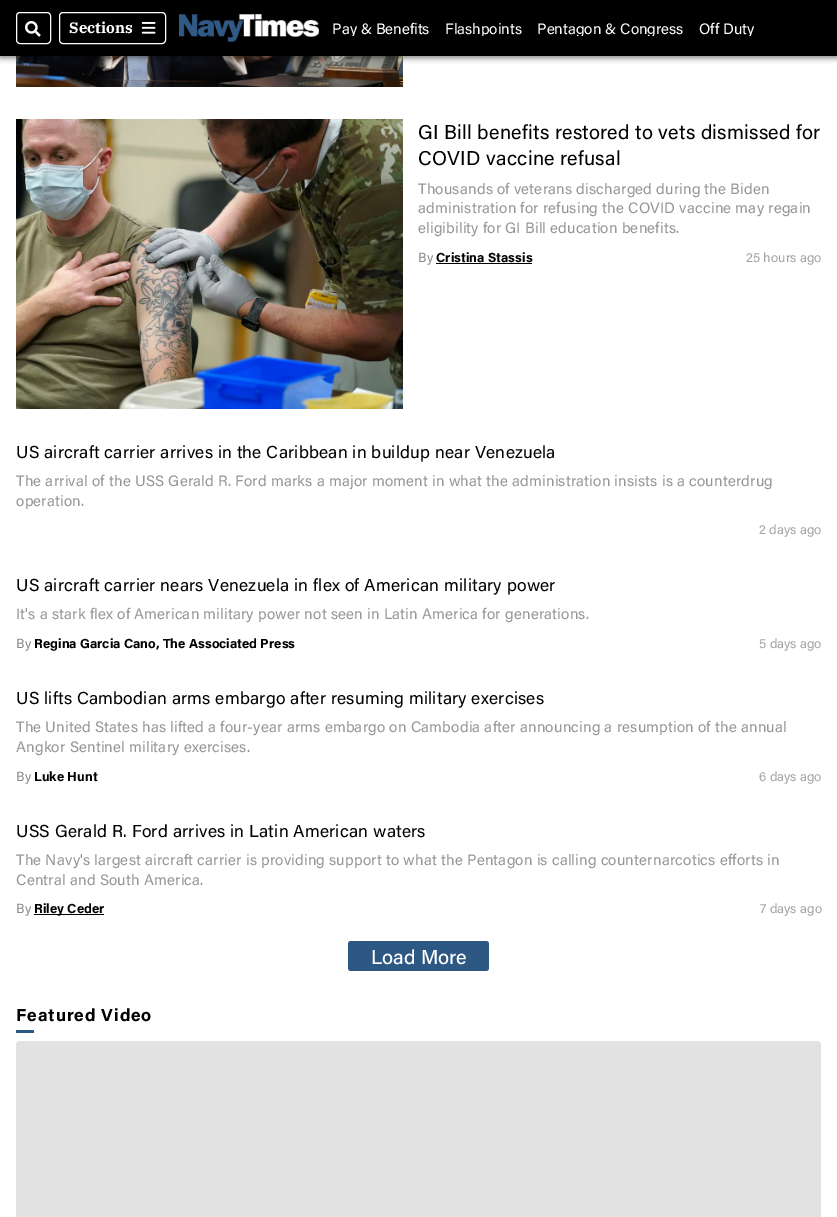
%!PS-Adobe-3.0
%%BoundingBox: 0 0 837 1217
%%LanguageLevel: 3
%%Pages: 1
%%EndComments
%%BeginProlog
/m { moveto } bind def
/l { lineto } bind def
/h { closepath } bind def
/f { fill } bind def
/S { stroke } bind def
/q { gsave } bind def
/Q { grestore } bind def
/fn { [ exch dup neg 0 0 3 -1 roll 0 0 ] selectfont } def
/tx { moveto show } def
/bx { rectfill } def
/al { dup .setfillconstantalpha .setstrokeconstantalpha } def
/rr { 5 dict begin { /r /h /w /y /x } { exch def } forall
  x r add y moveto x w add y 2 copy h add r arct x w add y h add x 1 index r arct
  x y h add x y r arct x y 2 copy exch w add exch r arct closepath end } def
/sh { 12 dict begin { /a /b /q /h /w /y /x } { exch def } forall gsave /was 0 def
  9 -2 -9 { dup b mul 4 div /e exch def 1 sub .425 mul 2.718 exch exp 1 add a .99 .min exch div /now exch def
    1 1 now sub 1 was sub div sub al /was now def
    w h .min e 2 mul add 0 gt { x e sub y e sub w e 2 mul add h e 2 mul add
      q e add b .6 mul add w h .min 2 div e add .min 0 .max rr fill } if } for grestore end } def
/im { 5 dict begin { /h /w /y /x /name } { exch def } forall
  gsave x y translate w h scale
  w h 8 [w 0 0 h 0 0] name (r) file false 3 colorimage grestore end } def
%%EndProlog
%%BeginSetup
<< /PageSize [837 1217] /PageUsesTransparency true >> setpagedevice
%%EndSetup
%%Page: 1 1
0 .pushpdf14devicefilter
0 1217 translate 1 -1 scale
4 setmiterlimit
1 setgray
0 0 837 1217 bx
(image3.raw) 16 56 387 31 im
0 setgray
0 2 837 56 0 3 0.5 sh
0 0 837 56 bx
1 setgray
16.5 12.5 34 31 3.5 rr S
(image0.raw) 25 21 16 16 im
59.5 12.5 106 31 3.5 rr S
/IBMPlexSerif-Bold 15.12 fn
(Sections) 69 33 tx
(image1.raw) 141 21 15 13 im
(image2.raw) 179 14 140 28 im
q
332 20 476 16 rectclip
/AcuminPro-Regular 15.12 fn
(Pay & Benefits) 332 34 tx
(Flashpoints) 445 34 tx
(Pentagon & Congress) 537 34 tx
(Off Duty) 699 34 tx
Q
q 92 102 m 730 102 l 730 103 l 92 103 l h clip newpath 411 103 translate 559 0.7 scale
<< /ShadingType 3 /ColorSpace /DeviceRGB /Coords [0 0 0 0 0 1] /Extend [true true] /Function << /FunctionType 2 /Domain [0 1] /C0 [0.886 0.886 0.886] /C1 [1 1 1] /N 1 >> >> shfill Q
(image4.raw) 16 119 387 290 im
/AcuminPro-Regular 20 fn
0 setgray
418 139 m 0.25 0 (GI Bill benefits restored to vets dismissed for) ashow
418 165 m 0.25 0 (COVID vaccine refusal) ashow
/AcuminPro-Regular 15.12 fn
0.588 setgray
418 194 m 0.19 0 (Thousands of veterans discharged during the Biden) ashow
418 213 m 0.19 0 (administration for refusing the COVID vaccine may regain) ashow
418 233 m 0.19 0 (eligibility for GI Bill education benefits.) ashow
/AcuminPro-Regular 13.2 fn
0.537 setgray
(By) 418 262 tx
/AcuminPro-Bold 13.2 fn
0 setgray
(Cristina Stassis) 436 262 tx
436 263 96 1 bx
/AcuminPro-Regular 13.2 fn
0.639 setgray
(25 hours ago) 746 262 tx
q 94 424 m 744 424 l 744 425 l 94 425 l h clip newpath 419 425 translate 569 0.7 scale
<< /ShadingType 3 /ColorSpace /DeviceRGB /Coords [0 0 0 0 0 1] /Extend [true true] /Function << /FunctionType 2 /Domain [0 1] /C0 [0.886 0.886 0.886] /C1 [1 1 1] /N 1 >> >> shfill Q
/AcuminPro-Regular 17.4 fn
0 setgray
16 458 m 0.22 0 (US aircraft carrier arrives in the Caribbean in buildup near Venezuela) ashow
/AcuminPro-Regular 15.12 fn
0.588 setgray
16 486 m 0.19 0 (The arrival of the USS Gerald R. Ford marks a major moment in what the administration insists is a counterdrug) ashow
16 506 m 0.19 0 (operation.) ashow
/AcuminPro-Regular 13.2 fn
0.639 setgray
(2 days ago) 759 534 tx
q 92 557 m 730 557 l 730 558 l 92 558 l h clip newpath 411 558 translate 559 0.7 scale
<< /ShadingType 3 /ColorSpace /DeviceRGB /Coords [0 0 0 0 0 1] /Extend [true true] /Function << /FunctionType 2 /Domain [0 1] /C0 [0.886 0.886 0.886] /C1 [1 1 1] /N 1 >> >> shfill Q
/AcuminPro-Regular 17.4 fn
0 setgray
16 591 m 0.22 0 (US aircraft carrier nears Venezuela in flex of American military power) ashow
/AcuminPro-Regular 15.12 fn
0.588 setgray
16 619 m 0.19 0 (It's a stark flex of American military power not seen in Latin America for generations.) ashow
/AcuminPro-Regular 13.2 fn
0.537 setgray
(By) 16 648 tx
/AcuminPro-Bold 13.2 fn
0 setgray
(Regina Garcia Cano, The Associated Press) 34 648 tx
/AcuminPro-Regular 13.2 fn
0.639 setgray
(5 days ago) 759 648 tx
q 92 670 m 730 670 l 730 671 l 92 671 l h clip newpath 411 671 translate 559 0.7 scale
<< /ShadingType 3 /ColorSpace /DeviceRGB /Coords [0 0 0 0 0 1] /Extend [true true] /Function << /FunctionType 2 /Domain [0 1] /C0 [0.886 0.886 0.886] /C1 [1 1 1] /N 1 >> >> shfill Q
/AcuminPro-Regular 17.4 fn
0 setgray
16 704 m 0.22 0 (US lifts Cambodian arms embargo after resuming military exercises) ashow
/AcuminPro-Regular 15.12 fn
0.588 setgray
16 732 m 0.19 0 (The United States has lifted a four-year arms embargo on Cambodia after announcing a resumption of the annual) ashow
16 752 m 0.19 0 (Angkor Sentinel military exercises.) ashow
/AcuminPro-Regular 13.2 fn
0.537 setgray
(By) 16 781 tx
/AcuminPro-Bold 13.2 fn
0 setgray
(Luke Hunt) 34 781 tx
/AcuminPro-Regular 13.2 fn
0.639 setgray
(6 days ago) 759 781 tx
q 92 803 m 730 803 l 730 804 l 92 804 l h clip newpath 411 804 translate 559 0.7 scale
<< /ShadingType 3 /ColorSpace /DeviceRGB /Coords [0 0 0 0 0 1] /Extend [true true] /Function << /FunctionType 2 /Domain [0 1] /C0 [0.886 0.886 0.886] /C1 [1 1 1] /N 1 >> >> shfill Q
/AcuminPro-Regular 17.4 fn
0 setgray
16 837 m 0.22 0 (USS Gerald R. Ford arrives in Latin American waters) ashow
/AcuminPro-Regular 15.12 fn
0.588 setgray
16 865 m 0.19 0 (The Navy's largest aircraft carrier is providing support to what the Pentagon is calling counternarcotics efforts in) ashow
16 885 m 0.19 0 (Central and South America.) ashow
/AcuminPro-Regular 13.2 fn
0.537 setgray
(By) 16 913 tx
0 setgray
34 914 70 1 bx
/AcuminPro-Bold 13.2 fn
(Riley Ceder) 34 913 tx
/AcuminPro-Regular 13.2 fn
0.639 setgray
(7 days ago) 760 913 tx
0.18 0.345 0.518 setrgbcolor
348 941 141 30 3 rr f
/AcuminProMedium-Medium 20 fn
1 setgray
(Load More) 371 964 tx
/AcuminPro-Bold 17.4 fn
0 setgray
16 1021 m 0.9 0 (Featured Video) ashow
0.18 0.345 0.518 setrgbcolor
16 1030 18 3 bx
0.886 setgray
16 1041 805 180 4 rr f
.poppdf14devicefilter showpage
%%EOF
